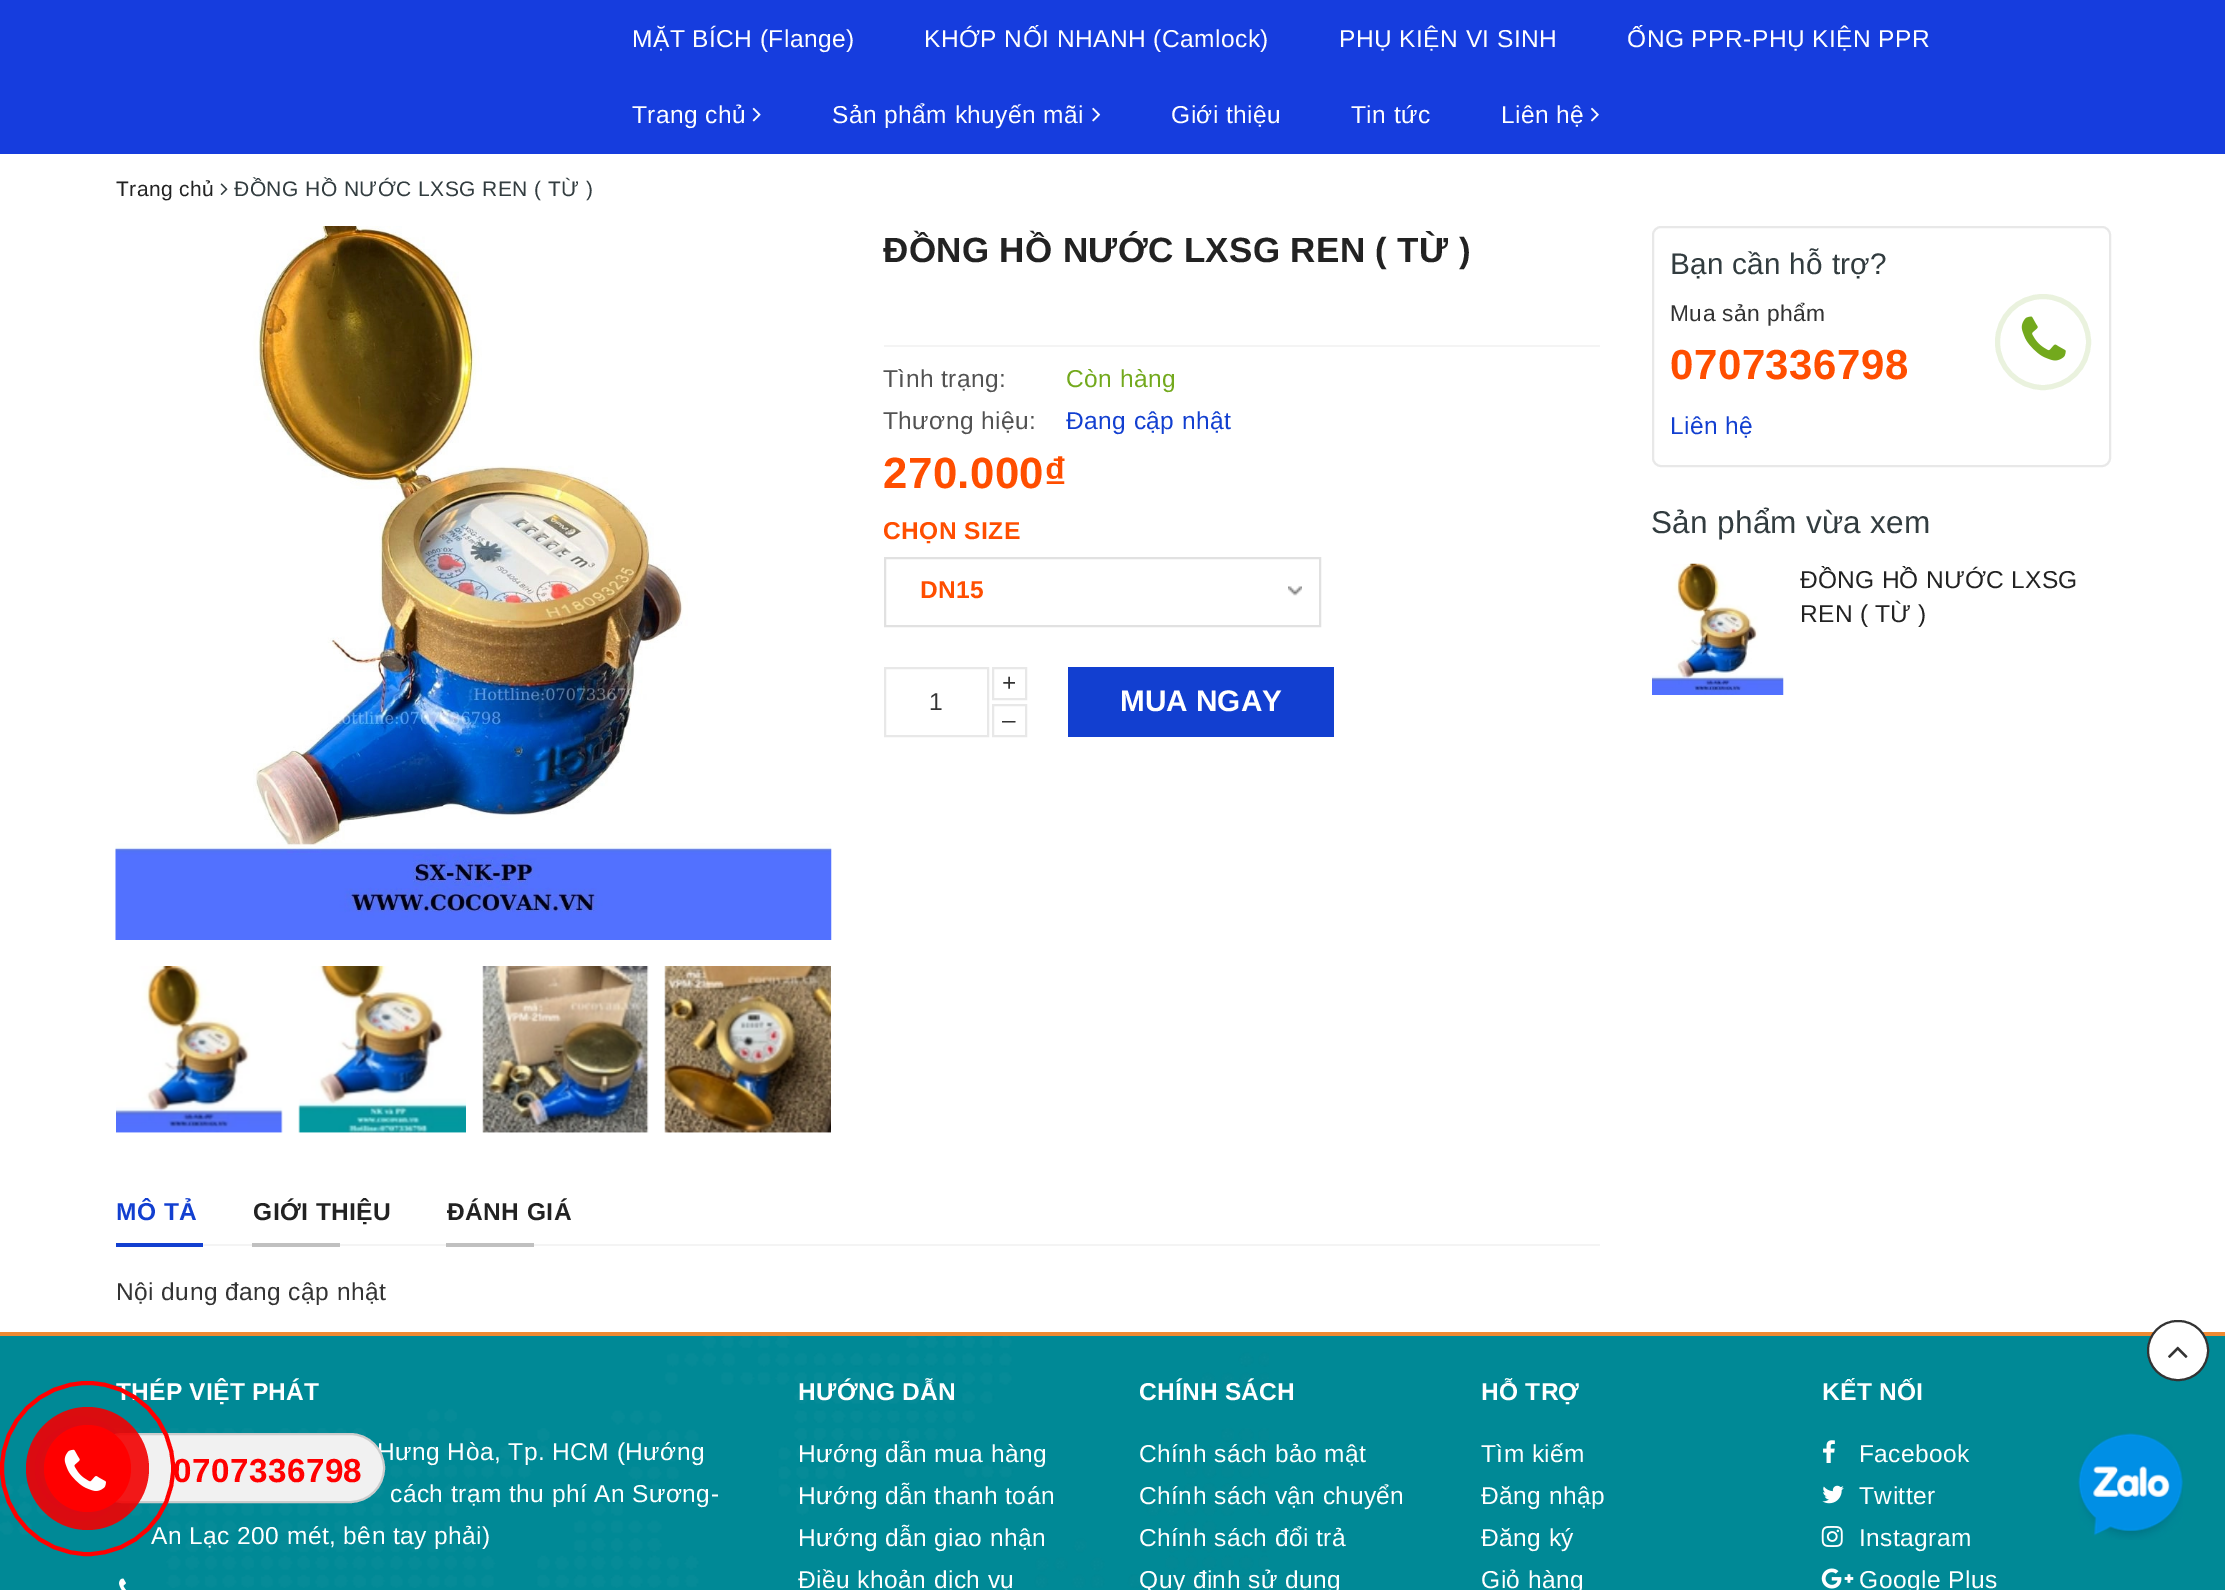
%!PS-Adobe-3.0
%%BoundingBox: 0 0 2225 1590
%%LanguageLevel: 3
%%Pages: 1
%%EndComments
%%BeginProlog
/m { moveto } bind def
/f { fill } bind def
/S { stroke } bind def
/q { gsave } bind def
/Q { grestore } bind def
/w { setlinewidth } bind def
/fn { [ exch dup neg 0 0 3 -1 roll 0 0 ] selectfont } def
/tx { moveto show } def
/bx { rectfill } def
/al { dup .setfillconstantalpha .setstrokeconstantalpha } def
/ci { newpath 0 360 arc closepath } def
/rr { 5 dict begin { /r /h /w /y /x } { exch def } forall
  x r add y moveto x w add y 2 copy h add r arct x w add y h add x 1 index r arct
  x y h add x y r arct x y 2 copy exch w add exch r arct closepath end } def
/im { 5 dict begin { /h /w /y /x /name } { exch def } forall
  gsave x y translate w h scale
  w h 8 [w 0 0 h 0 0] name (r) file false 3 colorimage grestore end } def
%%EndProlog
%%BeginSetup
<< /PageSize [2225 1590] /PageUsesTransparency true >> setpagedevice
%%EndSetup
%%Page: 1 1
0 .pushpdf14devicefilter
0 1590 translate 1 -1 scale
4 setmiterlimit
1 setgray
0 0 2225 1590 bx
0 0.537 0.588 setrgbcolor
0 1336 2225 254 bx
(image12.raw) 0 1336 1269 252 im
0.5 al
0.078 0.275 0.906 setrgbcolor
4 w
37 1427 84 83 41.5 rr S
0.38 al
0.071 0.247 0.816 setrgbcolor
78.5 1468.5 52.5 ci f
1 al
0.086 0.239 0.871 setrgbcolor
0 0 2225 154 bx
/LiberationSans-Regular 24.5 fn
1 setgray
632 47 m 0.45 0 (MẶT BÍCH \(Flange\)) ashow
924 47 m 0.45 0 (KHỚP NỐI NHANH \(Camlock\)) ashow
1339 47 m 0.45 0 (PHỤ KIỆN VI SINH) ashow
1627 47 m 0.45 0 (ỐNG PPR-PHỤ KIỆN PPR) ashow
632 123 m 0.45 0 (Trang chủ) ashow
(image0.raw) 752 107 9 15 im
832 123 m 0.45 0 (Sản phẩm khuyến mãi) ashow
(image1.raw) 1092 107 9 15 im
1171 123 m 0.45 0 (Giới thiệu) ashow
1351 123 m 0.45 0 (Tin tức) ashow
1501 123 m 0.45 0 (Liên hệ) ashow
(image2.raw) 1591 107 8 15 im
/LiberationSans-Regular 21 fn
0.133 setgray
116 196 m 0.45 0 (Trang chủ) ashow
(image3.raw) 220 183 8 12 im
0.196 0.235 0.247 setrgbcolor
234 196 m 0.45 0 (ĐỒNG HỒ NƯỚC LXSG REN \( TỪ \)) ashow
(image4.raw) 115 226 717 714 im
(image5.raw) 116 966 167 167 im
(image6.raw) 298 966 168 167 im
(image7.raw) 482 966 167 167 im
(image8.raw) 664 966 167 167 im
/LiberationSans-Bold 35 fn
0.133 setgray
883 262 m 0.35 0 (ĐỒNG HỒ NƯỚC LXSG REN \( TỪ \)) ashow
0.957 setgray
884 345 716 2 bx
/LiberationSans-Regular 24.5 fn
0.322 setgray
883 387 m 0.45 0 (Tình trạng:) ashow
0.451 0.663 0.114 setrgbcolor
1066 387 m 0.45 0 (Còn hàng) ashow
0.322 setgray
883 429 m 0.45 0 (Thương hiệu:) ashow
0.071 0.247 0.816 setrgbcolor
1066 429 m 0.45 0 (Đang cập nhật) ashow
/LiberationSans-Bold 43.75 fn
1 0.306 0 setrgbcolor
883 488 m 0.45 0 (270.000₫) ashow
/LiberationSans-Bold 24.5 fn
883 539 m 0.45 0 (CHỌN SIZE) ashow
(image9.raw) 1288 586 14 10 im
0.882 setgray
2 w
885 558 435 68 rectstroke
1 0.306 0 setrgbcolor
920 598 m 0.45 0 (DN15) ashow
0.91 setgray
885 668 103 68 rectstroke
/LiberationSans-Regular 24.5 fn
0.2 setgray
929 710 m 0.45 0 (1) ashow
0.91 setgray
993 668 33 31 rectstroke
0.2 setgray
1002 691 m 0.45 0 (+) ashow
0.91 setgray
993 705 33 31 rectstroke
0.2 setgray
1002 728 m 0.45 0 (–) ashow
0.071 0.247 0.816 setrgbcolor
1068 667 266 70 bx
/LiberationSans-Bold 29.75 fn
1 setgray
(MUA NGAY) 1120 711 tx
0.957 setgray
203 1244 1397 2 bx
/LiberationSans-Bold 24.5 fn
0.071 0.247 0.816 setrgbcolor
116 1220 m 0.45 0 (MÔ TẢ) ashow
116 1243 87 4 bx
0.133 setgray
253 1220 m 0.45 0 (GIỚI THIỆU) ashow
0.753 setgray
252 1243 88 4 bx
0.133 setgray
447 1220 m 0.45 0 (ĐÁNH GIÁ) ashow
0.753 setgray
446 1243 88 4 bx
/LiberationSans-Regular 24.5 fn
0.2 setgray
116 1300 m 0.45 0 (Nội dung đang cập nhật) ashow
0.91 setgray
1653 227 457 239 8 rr S
/LiberationSans-Regular 29.75 fn
0.196 0.235 0.247 setrgbcolor
1670 274 m 0.25 0 (Bạn cần hỗ trợ?) ashow
/LiberationSans-Regular 22.75 fn
0.2 setgray
1670 321 m 0.45 0 (Mua sản phẩm) ashow
/LiberationSans-Bold 42 fn
1 0.306 0 setrgbcolor
1670 379 m 0.5 0 (0707336798) ashow
/LiberationSans-Regular 24.5 fn
0.071 0.247 0.816 setrgbcolor
1670 434 m 0.45 0 (Liên hệ) ashow
0.918 0.949 0.871 setrgbcolor
5 w
2043 342 45.5 ci S
(image10.raw) 2021 316 45 45 im
/LiberationSans-Regular 31.5 fn
0.196 0.235 0.247 setrgbcolor
1651 533 m 0.3 0 (Sản phẩm vừa xem) ashow
(image11.raw) 1652 563 132 132 im
/LiberationSans-Regular 24.5 fn
0.133 setgray
1800 588 m 0.25 0 (ĐỒNG HỒ NƯỚC LXSG) ashow
1800 622 m 0.25 0 (REN \( TỪ \)) ashow
0.937 0.541 0.196 setrgbcolor
0 1332 2225 4 bx
1 setgray
2148 1321 60 59 29.5 rr q f Q
0.2 setgray
2 w
S
(image13.raw) 2168 1346 20 12 im
/LiberationSans-Bold 24.5 fn
1 setgray
116 1400 m 0.25 0 (THÉP VIỆT PHÁT) ashow
/LiberationSans-Regular 24.5 fn
377 1460 m 0.45 0 (Hưng Hòa, Tp. HCM \(Hướng) ashow
390 1502 m 0.45 0 (cách trạm thu phí An Sương-) ashow
151 1544 m 0.45 0 (An Lạc 200 mét, bên tay phải\)) ashow
(image14.raw) 119 1578 7 12 im
/LiberationSans-Bold 24.5 fn
798 1400 m 0.25 0 (HƯỚNG DẪN) ashow
/LiberationSans-Regular 24.5 fn
798 1462 m 0.45 0 (Hướng dẫn mua hàng) ashow
798 1504 m 0.45 0 (Hướng dẫn thanh toán) ashow
798 1546 m 0.45 0 (Hướng dẫn giao nhận) ashow
798 1588 m 0.45 0 (Điều khoản dịch vụ) ashow
/LiberationSans-Bold 24.5 fn
1139 1400 m 0.25 0 (CHÍNH SÁCH) ashow
/LiberationSans-Regular 24.5 fn
1139 1462 m 0.45 0 (Chính sách bảo mật) ashow
1139 1504 m 0.45 0 (Chính sách vận chuyển) ashow
1139 1546 m 0.45 0 (Chính sách đổi trả) ashow
1139 1588 m 0.45 0 (Quy định sử dụng) ashow
/LiberationSans-Bold 24.5 fn
1481 1400 m 0.25 0 (HỖ TRỢ) ashow
/LiberationSans-Regular 24.5 fn
1481 1462 m 0.45 0 (Tìm kiếm) ashow
1481 1504 m 0.45 0 (Đăng nhập) ashow
1481 1546 m 0.45 0 (Đăng ký) ashow
1481 1588 m 0.45 0 (Giỏ hàng) ashow
/LiberationSans-Bold 24.5 fn
1822 1400 m 0.25 0 (KẾT NỐI) ashow
(image15.raw) 1823 1440 12 23 im
/LiberationSans-Regular 24.5 fn
1859 1462 m 0.45 0 (Facebook) ashow
(image16.raw) 1822 1485 22 19 im
1859 1504 m 0.45 0 (Twitter) ashow
(image17.raw) 1821 1526 22 21 im
1859 1546 m 0.45 0 (Instagram) ashow
(image18.raw) 1821 1568 33 21 im
1859 1588 m 0.45 0 (Google Plus) ashow
(image19.raw) 2078 1433 105 107 im
0.945 setgray
89 1434 295 68 34 rr q f Q
0.8 setgray
S
1 0 0 setrgbcolor
4 w
87.5 1468.5 85.5 ci S
0.9 al
0.949 0 0 setrgbcolor
87.5 1468.5 61.5 ci f
1 al
1 0 0 setrgbcolor
87.5 1468.5 43.5 ci f
(image20.raw) 64 1449 42 42 im
/LiberationSans-Bold 33.25 fn
173 1482 m 0.45 0 (0707336798) ashow
.poppdf14devicefilter showpage
%%EOF
